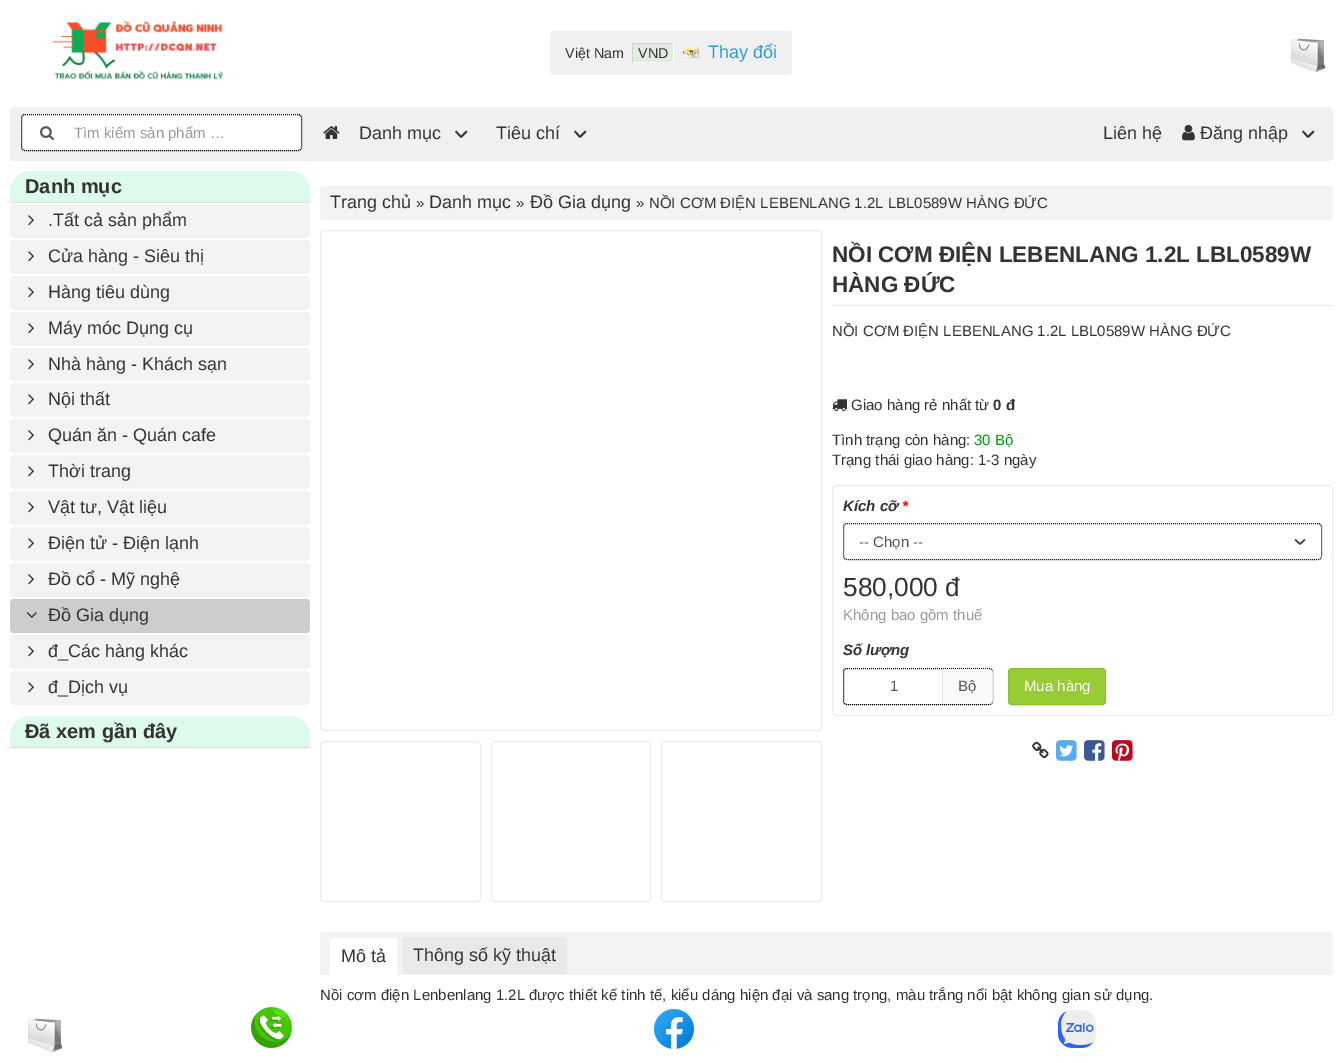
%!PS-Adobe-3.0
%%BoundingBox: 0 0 1343 1063
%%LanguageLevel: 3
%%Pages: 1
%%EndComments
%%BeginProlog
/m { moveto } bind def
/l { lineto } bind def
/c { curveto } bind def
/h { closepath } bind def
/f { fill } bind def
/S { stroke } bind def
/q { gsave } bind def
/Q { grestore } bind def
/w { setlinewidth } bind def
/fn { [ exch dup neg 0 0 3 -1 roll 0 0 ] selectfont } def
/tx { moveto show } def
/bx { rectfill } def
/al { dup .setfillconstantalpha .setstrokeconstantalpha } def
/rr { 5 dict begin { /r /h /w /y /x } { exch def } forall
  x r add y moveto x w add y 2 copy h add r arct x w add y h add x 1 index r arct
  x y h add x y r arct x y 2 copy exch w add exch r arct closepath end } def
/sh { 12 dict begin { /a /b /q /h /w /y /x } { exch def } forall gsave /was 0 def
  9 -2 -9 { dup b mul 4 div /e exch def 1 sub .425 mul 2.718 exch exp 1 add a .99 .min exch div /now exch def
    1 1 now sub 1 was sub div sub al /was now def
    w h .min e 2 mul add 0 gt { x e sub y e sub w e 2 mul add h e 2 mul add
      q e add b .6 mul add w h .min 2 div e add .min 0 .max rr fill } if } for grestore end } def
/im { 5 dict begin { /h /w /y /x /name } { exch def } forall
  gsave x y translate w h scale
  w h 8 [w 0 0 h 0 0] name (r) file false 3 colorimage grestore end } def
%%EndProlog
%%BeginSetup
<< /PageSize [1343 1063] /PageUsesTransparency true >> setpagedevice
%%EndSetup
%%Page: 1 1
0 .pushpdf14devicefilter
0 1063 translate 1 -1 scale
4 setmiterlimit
1 setgray
0 0 1343 1063 bx
(image0.raw) 52 20 172 60 im
0.941 setgray
550 31 243 45 4 rr f
1 setgray
554 31 m 789 31 l 791 31 793 33 793 35 c 793 72 l 793 74 791 76 789 76 c 554 76 l 552 76 550 74 550 72 c 550 35 l 550 33 552 31 554 31 c h 554 31 m 789 31 l 791 31 792 33 792 35 c 792 72 l 792 74 791 75 789 75 c 554 75 l 552 75 550 74 550 72 c 550 35 l 550 33 552 31 554 31 c h eofill
/LiberationSans-Regular 14.25 fn
0.2 setgray
(Việt Nam) 565 58 tx
0.89 0.925 0.878 setrgbcolor
633 44 40 18 bx
0.2 setgray
(VND) 638 58 tx
0.82 setgray
632 43 42 1 bx
1 setgray
673 43 1 20 bx
632 62 42 1 bx
0.82 setgray
632 43 1 20 bx
(image1.raw) 683 47 16 11 im
/LiberationSans-Regular 18 fn
0.18 0.612 0.831 setrgbcolor
(Thay đổi) 708 58 tx
(image2.raw) 1290 38 35 35 im
0.941 setgray
10 107 1323 54 4 rr f
1 setgray
21 114 281 37 4 rr f
0 setgray
[1 1] 0 setdash
25 114.5 m 298 114.5 l 300 114.5 301.5 116 301.5 118 c 301.5 147 l 301.5 149 300 150.5 298 150.5 c 25 150.5 l 23 150.5 21.5 149 21.5 147 c 21.5 118 l 21.5 116 23 114.5 25 114.5 c h S
(image3.raw) 40 126 14 15 im
/LiberationSans-Regular 15 fn
0.6 setgray
(Tìm kiếm sản phẩm …) 74 138 tx
(image4.raw) 323 126 17 13 im
0.204 0.227 0.251 setrgbcolor
1.8 w
1 setlinecap
1 setlinejoin
[] 0 setdash
456 131.5 m 461 137 l 466.5 131.5 l S
/LiberationSans-Regular 18 fn
0.2 setgray
(Danh mục) 359 139 tx
0.204 0.227 0.251 setrgbcolor
575 131.5 m 580 137 l 585.5 131.5 l S
0.2 setgray
(Tiêu chí) 496 139 tx
(Liên hệ) 1103 139 tx
0.204 0.227 0.251 setrgbcolor
1303 131.5 m 1308 137 l 1313.5 131.5 l S
(image5.raw) 1182 124 13 17 im
0.2 setgray
(Đăng nhập) 1200 139 tx
0.871 0.98 0.922 setrgbcolor
30 171 m 290 171 l 301 171 310 180 310 191 c 310 203 l 10 203 l 10 191 l 10 180 19 171 30 171 c h f
0.804 0.906 0.851 setrgbcolor
10 202 300 1 bx
/LiberationSans-Bold 20 fn
0.2 setgray
(Danh mục) 25 193 tx
0.953 setgray
10 204 300 34 4 rr f
(image6.raw) 28 215 6 11 im
/LiberationSans-Regular 18 fn
0.2 setgray
(.Tất cả sản phẩm) 48 226 tx
0.953 setgray
10 240 300 34 4 rr f
(image6.raw) 28 251 6 11 im
0.2 setgray
(Cửa hàng - Siêu thị) 48 262 tx
0.953 setgray
10 276 300 34 4 rr f
(image6.raw) 28 287 6 11 im
0.2 setgray
(Hàng tiêu dùng) 48 298 tx
0.953 setgray
10 312 300 34 4 rr f
(image6.raw) 28 323 6 11 im
0.2 setgray
(Máy móc Dụng cụ) 48 334 tx
0.953 setgray
10 348 300 33 4 rr f
(image6.raw) 28 359 6 11 im
0.2 setgray
(Nhà hàng - Khách sạn) 48 370 tx
0.953 setgray
10 383 300 34 4 rr f
(image6.raw) 28 394 6 11 im
0.2 setgray
(Nội thất) 48 405 tx
0.953 setgray
10 419 300 34 4 rr f
(image6.raw) 28 430 6 11 im
0.2 setgray
(Quán ăn - Quán cafe) 48 441 tx
0.953 setgray
10 455 300 34 4 rr f
(image6.raw) 28 466 6 11 im
0.2 setgray
(Thời trang) 48 477 tx
0.953 setgray
10 491 300 34 4 rr f
(image6.raw) 28 502 6 11 im
0.2 setgray
(Vật tư, Vật liệu) 48 513 tx
0.953 setgray
10 527 300 34 4 rr f
(image6.raw) 28 538 6 11 im
0.2 setgray
(Điện tử - Điện lạnh) 48 549 tx
0.953 setgray
10 563 300 34 4 rr f
(image6.raw) 28 574 6 11 im
0.2 setgray
(Đồ cổ - Mỹ nghệ) 48 585 tx
0.804 setgray
10 599 300 34 4 rr f
(image7.raw) 26 612 11 6 im
0.2 setgray
(Đồ Gia dụng) 48 621 tx
0.953 setgray
10 635 300 34 4 rr f
(image6.raw) 28 646 6 11 im
0.2 setgray
(đ_Các hàng khác) 48 657 tx
0.953 setgray
10 671 300 34 4 rr f
(image6.raw) 28 682 6 11 im
0.2 setgray
(đ_Dịch vụ) 48 693 tx
0.871 0.98 0.922 setrgbcolor
30 716 m 290 716 l 301 716 310 725 310 736 c 310 748 l 10 748 l 10 736 l 10 725 19 716 30 716 c h f
0.804 0.906 0.851 setrgbcolor
10 747 300 1 bx
/LiberationSans-Bold 20 fn
0.2 setgray
(Đã xem gần đây) 25 738 tx
0.953 setgray
320 186 1013 34 4 rr f
/LiberationSans-Regular 18 fn
0.2 setgray
(Trang chủ) 330 208 tx
/LiberationSans-Regular 15 fn
(») 416 208 tx
/LiberationSans-Regular 18 fn
(Danh mục) 429 208 tx
/LiberationSans-Regular 15 fn
(») 516 208 tx
/LiberationSans-Regular 18 fn
(Đồ Gia dụng) 530 208 tx
/LiberationSans-Regular 15 fn
(») 636 208 tx
(NỒI CƠM ĐIỆN LEBENLANG 1.2L LBL0589W HÀNG ĐỨC) 649 208 tx
0.925 setgray
1 w
0 setlinecap
0 setlinejoin
320.5 230.5 501 500 3.5 rr S
320.5 741.5 160 160 3.5 rr S
491.5 741.5 159 160 3.5 rr S
661.5 741.5 160 160 3.5 rr S
832 305 501 1 bx
/LiberationSans-Bold 22.5 fn
0.2 setgray
(NỒI CƠM ĐIỆN LEBENLANG 1.2L LBL0589W) 832 262 tx
(HÀNG ĐỨC) 832 292 tx
/LiberationSans-Regular 15 fn
(NỒI CƠM ĐIỆN LEBENLANG 1.2L LBL0589W HÀNG ĐỨC) 832 336 tx
(image8.raw) 832 399 15 13 im
(Giao hàng rẻ nhất từ) 851 410 tx
/LiberationSans-Bold 15 fn
(0 đ) 993 410 tx
/LiberationSans-Regular 15 fn
(Tình trạng còn hàng:) 832 445 tx
0 0.6 0 setrgbcolor
(30 Bộ) 974 445 tx
0.2 setgray
(Trạng thái giao hàng: 1-3 ngày) 832 465 tx
0.925 setgray
832.5 485.5 500 230 3.5 rr S
/LiberationSans-BoldItalic 15 fn
0.2 setgray
(Kích cỡ) 843 511 tx
1 0 0 setrgbcolor
(*) 902 511 tx
0.204 0.227 0.251 setrgbcolor
1.5 w
1 setlinecap
1 setlinejoin
1295.5 540 m 1300 544 l 1304.5 540 l S
0.157 0.11 0.11 setrgbcolor
1 w
0 setlinecap
0 setlinejoin
[1 1] 0 setdash
847 523.5 m 1318 523.5 l 1320 523.5 1321.5 525 1321.5 527 c 1321.5 556 l 1321.5 558 1320 559.5 1318 559.5 c 847 559.5 l 845 559.5 843.5 558 843.5 556 c 843.5 527 l 843.5 525 845 523.5 847 523.5 c h S
/LiberationSans-Regular 15 fn
0.333 setgray
(-- Chọn --) 859 547 tx
/LiberationSans-Regular 26.25 fn
0.2 setgray
(580,000 đ) 843 596 tx
/LiberationSans-Regular 15 fn
0.6 setgray
(Không bao gồm thuế) 843 620 tx
/LiberationSans-BoldItalic 15 fn
0.2 setgray
(Số lượng) 843 655 tx
0 setgray
847 668.5 m 989 668.5 l 991 668.5 992.5 670 992.5 672 c 992.5 701 l 992.5 703 991 704.5 989 704.5 c 847 704.5 l 845 704.5 843.5 703 843.5 701 c 843.5 672 l 843.5 670 845 668.5 847 668.5 c h S
/LiberationSans-Regular 15 fn
0.333 setgray
(1) 890 691 tx
0.976 setgray
942 669 m 989 669 l 991 669 993 671 993 673 c 993 700 l 993 702 991 704 989 704 c 942 704 l h f
0.07 al
0 setgray
992 671 1 31 bx
1 al
0.902 setgray
942 669 1 35 bx
0.333 setgray
(Bộ) 958 691 tx
0 setgray
1008 669 98 37 4 0.5 0.1 sh
0.596 0.8 0.204 setrgbcolor
1008 668 98 37 4 rr f
0.07 al
0 setgray
[] 0 setdash
1008.5 668.5 97 36 3.5 rr S
1 al
1 setgray
(Mua hàng) 1024 691 tx
(image9.raw) 1032 741 17 18 im
(image10.raw) 1056 740 21 21 im
(image11.raw) 1084 740 21 21 im
(image12.raw) 1112 740 21 21 im
0.953 setgray
324 932 m 1329 932 l 1331 932 1333 934 1333 936 c 1333 975 l 320 975 l 320 936 l 320 934 322 932 324 932 c h f
1 setgray
334 938.5 m 393 938.5 l 395 938.5 396.5 940 396.5 942 c 396.5 974.5 l 330.5 974.5 l 330.5 942 l 330.5 940 332 938.5 334 938.5 c h q f Q
S
/LiberationSans-Regular 18 fn
0.2 setgray
(Mô tả) 341 962 tx
0.914 setgray
406 937 m 563 937 l 565 937 567 939 567 941 c 567 974 l 402 974 l 402 941 l 402 939 404 937 406 937 c h f
0.2 setgray
(Thông số kỹ thuật) 413 961 tx
/LiberationSans-Regular 15 fn
(Nồi cơm điện Lenbenlang 1.2L được thiết kế tinh tế, kiểu dáng hiện đại và sang trọng, màu trắng nổi bật không gian sử dụng.) 320 1000 tx
0.77 al
1 setgray
15 1003 1276 59 29.5 rr f
1 al
(image13.raw) 27 1018 35 35 im
(image14.raw) 251 1007 41 41 im
(image15.raw) 654 1009 40 40 im
(image16.raw) 1058 1010 38 38 im
.poppdf14devicefilter showpage
%%EOF
